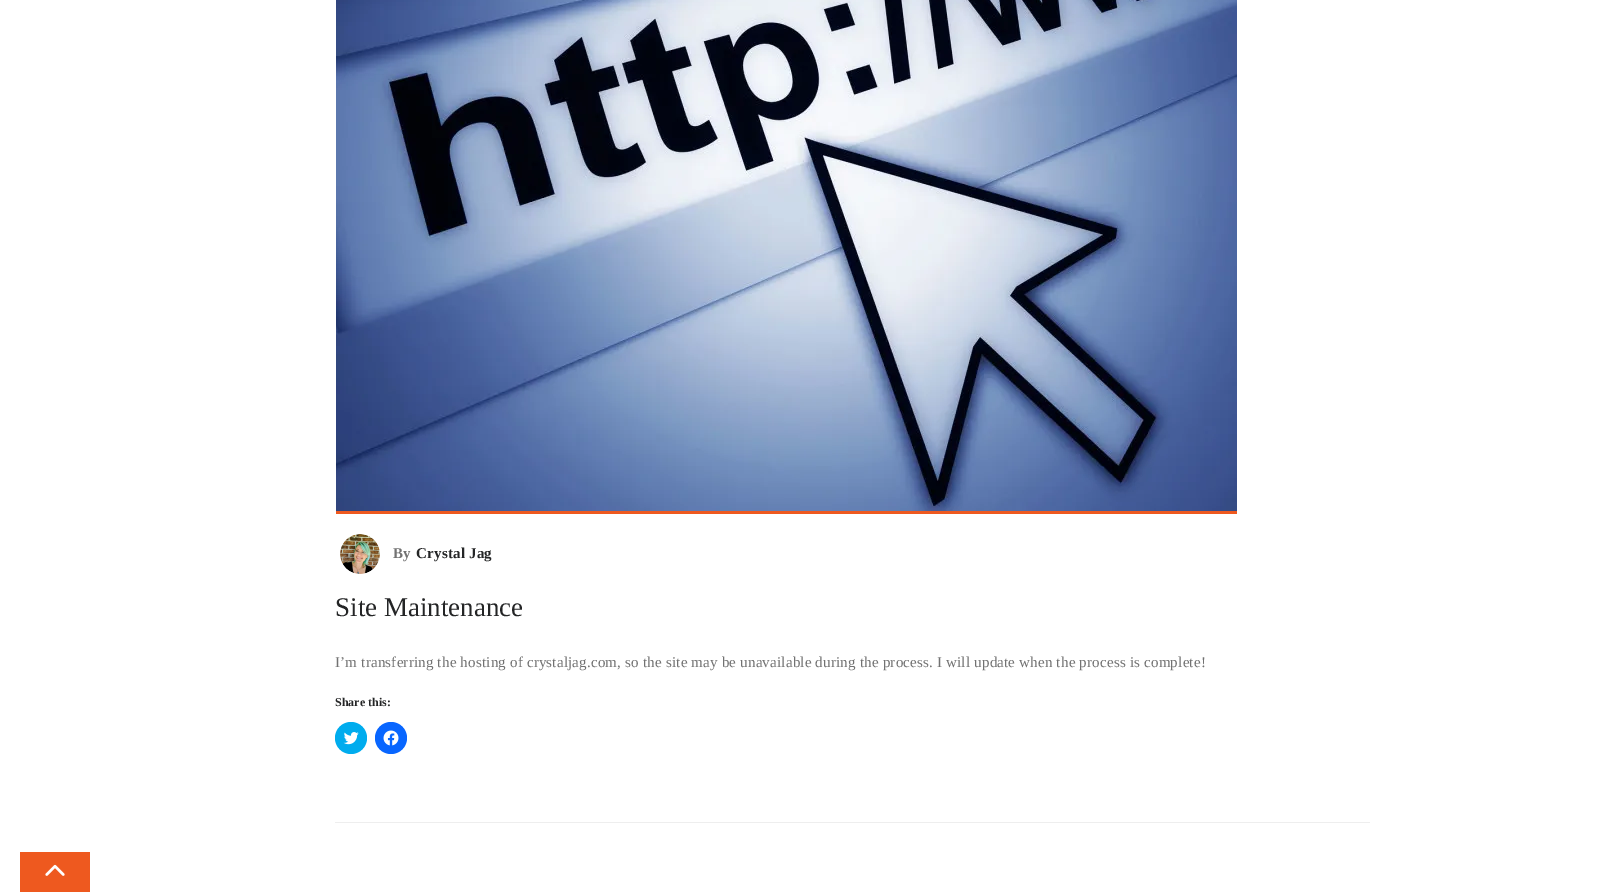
%!PS-Adobe-3.0
%%BoundingBox: 0 0 1619 892
%%LanguageLevel: 3
%%Pages: 1
%%EndComments
%%BeginProlog
/m { moveto } bind def
/f { fill } bind def
/fn { [ exch dup neg 0 0 3 -1 roll 0 0 ] selectfont } def
/tx { moveto show } def
/bx { rectfill } def
/ci { newpath 0 360 arc closepath } def
/im { 5 dict begin { /h /w /y /x /name } { exch def } forall
  gsave x y translate w h scale
  w h 8 [w 0 0 h 0 0] name (r) file false 3 colorimage grestore end } def
%%EndProlog
%%BeginSetup
<< /PageSize [1619 892] >> setpagedevice
%%EndSetup
%%Page: 1 1
0 892 translate 1 -1 scale
4 setmiterlimit
1 setgray
0 0 1619 892 bx
0.933 setgray
335 822 1035 1 bx
0.933 0.349 0.122 setrgbcolor
336 511 901 3 bx
(image0.raw) 336 0 901 511 im
(image1.raw) 340 534 40 40 im
/LiberationSerif-Bold 15 fn
0.447 setgray
393 558 m 0.2 0 (By) ashow
0.141 0.145 0.149 setrgbcolor
416 558 m 0.2 0 (Crystal Jag) ashow
/LiberationSerif-Regular 27 fn
(Site Maintenance) 335 616 tx
/LiberationSerif-Regular 15 fn
0.447 setgray
335 667 m 0.2 0 (I’m transferring the hosting of crystaljag.com, so the site may be unavailable during the process. I will update when the process is complete!) ashow
/LiberationSerif-Bold 12 fn
0.141 0.145 0.149 setrgbcolor
(Share this:) 335 706 tx
0 0.675 0.933 setrgbcolor
351 738 16 ci f
(image2.raw) 343 732 16 13 im
0.031 0.4 1 setrgbcolor
391 738 16 ci f
(image3.raw) 383 730 16 16 im
0.933 0.349 0.122 setrgbcolor
20 852 70 40 bx
(image4.raw) 45 864 20 12 im
showpage
%%EOF
